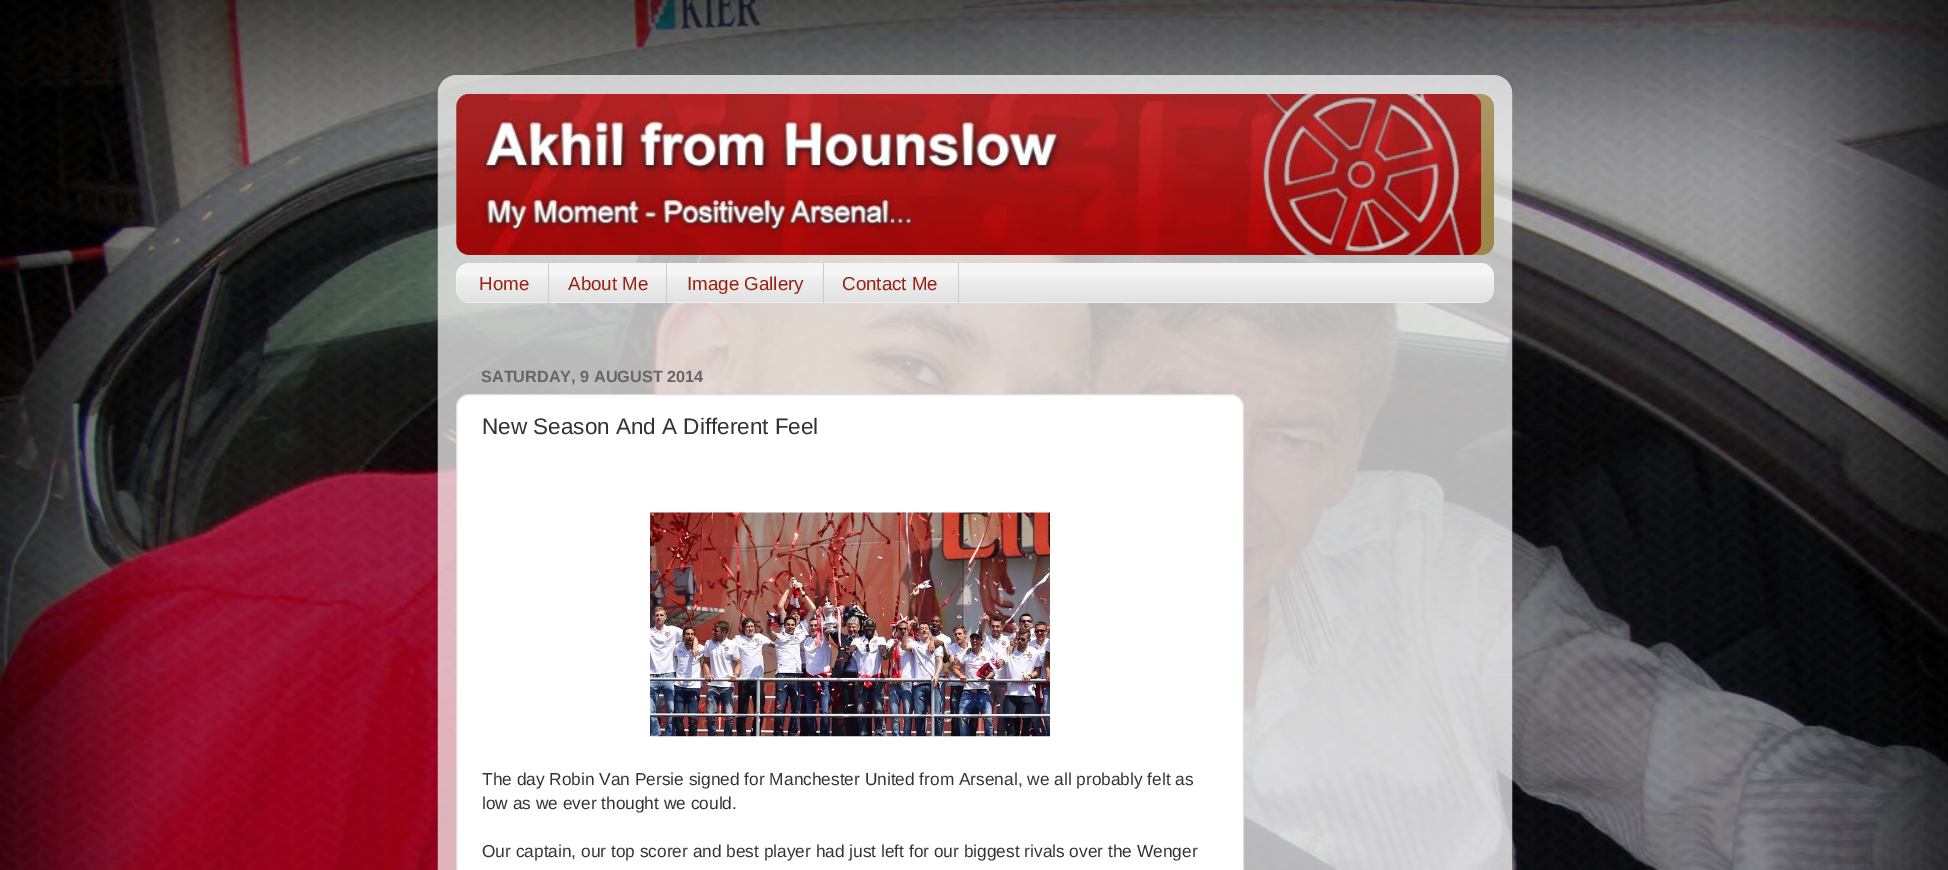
%!PS-Adobe-3.0
%%BoundingBox: 0 0 1948 870
%%LanguageLevel: 3
%%Pages: 1
%%EndComments
%%BeginProlog
/f { fill } bind def
/S { stroke } bind def
/q { gsave } bind def
/Q { grestore } bind def
/fn { [ exch dup neg 0 0 3 -1 roll 0 0 ] selectfont } def
/tx { moveto show } def
/bx { rectfill } def
/rr { 5 dict begin { /r /h /w /y /x } { exch def } forall
  x r add y moveto x w add y 2 copy h add r arct x w add y h add x 1 index r arct
  x y h add x y r arct x y 2 copy exch w add exch r arct closepath end } def
/im { 5 dict begin { /h /w /y /x /name } { exch def } forall
  gsave x y translate w h scale
  w h 8 [w 0 0 h 0 0] name (r) file false 3 colorimage grestore end } def
%%EndProlog
%%BeginSetup
<< /PageSize [1948 870] >> setpagedevice
%%EndSetup
%%Page: 1 1
0 870 translate 1 -1 scale
4 setmiterlimit
1 setgray
0 0 1948 870 bx
(image0.raw) 0 0 1948 870 im
(image1.raw) 437 75 1076 795 im
0.616 0.525 0.29 setrgbcolor
456 94 1038 161 13 rr f
(image2.raw) 456 94 1038 105 im
(image3.raw) 456 94 1026 161 im
0.961 setgray
456 263 1038 40 13 rr f
(image4.raw) 456 276 1038 27 im
0.8 setgray
548 263 1 40 bx
/LiberationSans-Regular 18.75 fn
0.6 0.133 0.067 setrgbcolor
(Home) 479 290 tx
0.8 setgray
666 263 1 40 bx
0.6 0.133 0.067 setrgbcolor
(About Me) 568 290 tx
0.8 setgray
823 263 1 40 bx
0.6 0.133 0.067 setrgbcolor
(Image Gallery) 687 290 tx
0.8 setgray
958 263 1 40 bx
0.6 0.133 0.067 setrgbcolor
(Contact Me) 842 290 tx
/LiberationSans-Bold 16.25 fn
0.4 setgray
(SATURDAY, 9 AUGUST 2014) 481 382 tx
1 setgray
456.5 394.5 787 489 12.5 rr q f Q
0.867 setgray
S
/LiberationSans-Regular 22.5 fn
0.2 setgray
(New Season And A Different Feel) 482 434 tx
(image5.raw) 650 512 400 225 im
/LiberationSans-Regular 17.3 fn
(The day Robin Van Persie signed for Manchester United from Arsenal, we all probably felt as) 482 785 tx
(low as we ever thought we could.) 482 809 tx
(Our captain, our top scorer and best player had just left for our biggest rivals over the Wenger) 482 857 tx
showpage
%%EOF
